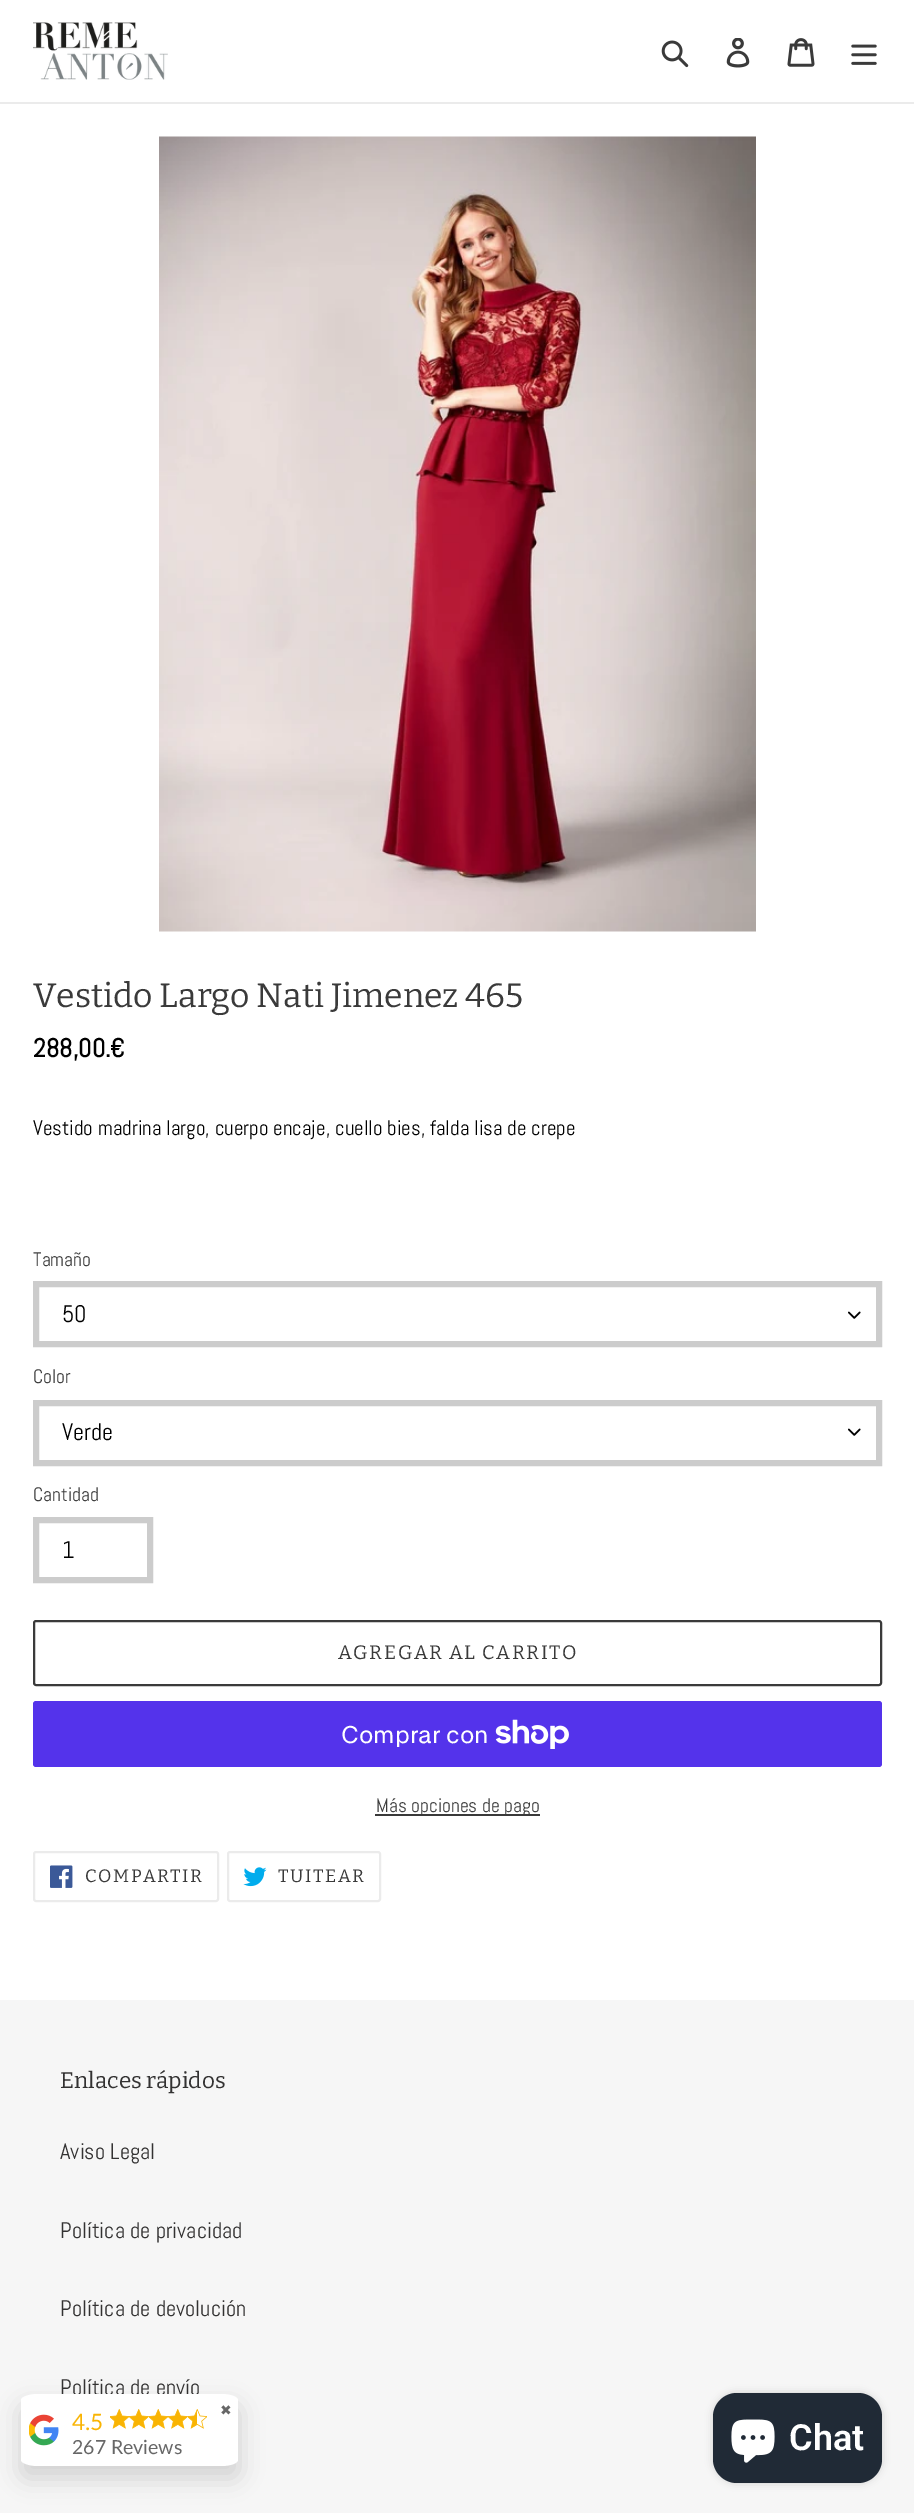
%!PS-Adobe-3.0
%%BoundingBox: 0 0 914 2513
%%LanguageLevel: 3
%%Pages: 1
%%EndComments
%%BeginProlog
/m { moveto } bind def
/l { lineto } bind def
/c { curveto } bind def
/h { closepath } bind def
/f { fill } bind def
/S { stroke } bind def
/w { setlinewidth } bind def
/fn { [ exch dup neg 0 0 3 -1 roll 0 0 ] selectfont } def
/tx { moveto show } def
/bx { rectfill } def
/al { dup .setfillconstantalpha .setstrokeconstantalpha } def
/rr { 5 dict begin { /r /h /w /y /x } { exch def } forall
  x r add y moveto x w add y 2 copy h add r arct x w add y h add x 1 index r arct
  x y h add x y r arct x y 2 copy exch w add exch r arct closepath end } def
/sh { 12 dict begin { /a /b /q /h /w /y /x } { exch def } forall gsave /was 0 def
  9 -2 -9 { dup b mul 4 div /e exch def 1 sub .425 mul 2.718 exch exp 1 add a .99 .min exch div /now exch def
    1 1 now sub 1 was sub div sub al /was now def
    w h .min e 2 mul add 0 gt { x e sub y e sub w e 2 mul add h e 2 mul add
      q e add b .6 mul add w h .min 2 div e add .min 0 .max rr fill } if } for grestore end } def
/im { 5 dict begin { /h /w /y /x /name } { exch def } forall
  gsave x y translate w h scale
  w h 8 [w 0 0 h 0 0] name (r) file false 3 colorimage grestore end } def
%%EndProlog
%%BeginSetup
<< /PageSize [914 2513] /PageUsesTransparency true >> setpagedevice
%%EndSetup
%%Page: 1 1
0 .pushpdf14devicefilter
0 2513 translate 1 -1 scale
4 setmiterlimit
1 setgray
0 0 914 2513 bx
0.922 setgray
0 102 914 2 bx
(image0.raw) 33 22 135 58 im
(image1.raw) 661 40 28 28 im
(image2.raw) 726 38 24 30 im
(image3.raw) 787 38 28 29 im
(image4.raw) 851 44 26 21 im
(image5.raw) 159 136 597 796 im
/Bitter-Regular 33.75 fn
0.227 setgray
(Vestido Largo Nati Jimenez 465) 33 1007 tx
/Abel-Bold 26 fn
0 setgray
(288,00.€) 33 1057 tx
/Abel-Regular 21 fn
(Vestido madrina largo, cuerpo encaje, cuello bies, falda lisa de crepe) 33 1135 tx
/Abel-Regular 19.5 fn
0.227 setgray
(Tamaño) 33 1266 tx
(image6.raw) 848 1311 13 8 im
0.8 setgray
6 w
36 1284 843 60 rectstroke
/Abel-Regular 24 fn
0 setgray
(50) 62 1322 tx
/Abel-Regular 19.5 fn
0.227 setgray
(Color) 33 1383 tx
(image6.raw) 848 1428 13 8 im
0.8 setgray
36 1403 843 60 rectstroke
/Abel-Regular 24 fn
0 setgray
(Verde) 62 1440 tx
/Abel-Regular 19.5 fn
0.227 setgray
(Cantidad) 33 1501 tx
0.8 setgray
36 1520 114 60 rectstroke
/Abel-Regular 24 fn
0 setgray
(1) 62 1558 tx
0.227 setgray
2 w
34 1621 847 64 2 rr S
/Bitter-Regular 19.5 fn
338 1659 m 1.6 0 (AGREGAR AL CARRITO) ashow
0.329 0.2 0.922 setrgbcolor
33 1701 849 66 3 rr f
/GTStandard-Regular 24 fn
1 setgray
(Comprar con) 341 1743 tx
(image7.raw) 495 1719 74 30 im
0.227 setgray
375 1814 165 2 bx
/Abel-Regular 19.5 fn
(Más opciones de pago) 376 1812 tx
0.922 setgray
34 1852 184 49 2 rr S
(image8.raw) 50 1865 23 23 im
/Bitter-Regular 18 fn
0.227 setgray
85 1882 m 1.5 0 (COMPARTIR) ashow
0.922 setgray
228 1852 152 49 2 rr S
(image9.raw) 243 1867 24 20 im
0.227 setgray
278 1882 m 1.5 0 (TUITEAR) ashow
0.965 setgray
0 2000 914 513 bx
/Bitter-Regular 22.5 fn
0.2 0.196 0.196 setrgbcolor
(Enlaces rápidos) 60 2088 tx
/Abel-Regular 22.5 fn
(Aviso Legal) 60 2159 tx
(Política de privacidad) 60 2238 tx
(Política de devolución) 60 2316 tx
(Política de envío) 60 2395 tx
0 setgray
21 2406 218 72 6 12 0.15 sh
1 setgray
38 2394 m 221 2394 l 231 2394 238 2397 238 2400 c 238 2460 l 238 2463 231 2466 221 2466 c 38 2466 l 29 2466 21 2463 21 2460 c 21 2400 l 21 2397 29 2394 38 2394 c h f
/DejaVuSans-Regular 14 fn
0.404 setgray
(✖) 220 2415 tx
(image10.raw) 29 2414 30 32 im
/Lato-Regular 22.5 fn
0.976 0.706 0.012 setrgbcolor
(4.5) 72 2430 tx
(image11.raw) 110 2409 19 20 im
(image12.raw) 129 2409 20 20 im
(image11.raw) 149 2409 19 20 im
(image12.raw) 168 2409 20 20 im
(image13.raw) 188 2409 19 20 im
/Lato-Regular 19.5 fn
0.404 setgray
(267 Reviews) 72 2454 tx
0 setgray
713 2393 169 90 24 4 0.15 sh
0.125 0.165 0.212 setrgbcolor
713 2393 169 90 24 rr f
(image14.raw) 731 2419 44 44 im
/Roboto-SemiBold 36 fn
1 setgray
(Chat) 789 2450 tx
.poppdf14devicefilter showpage
%%EOF
